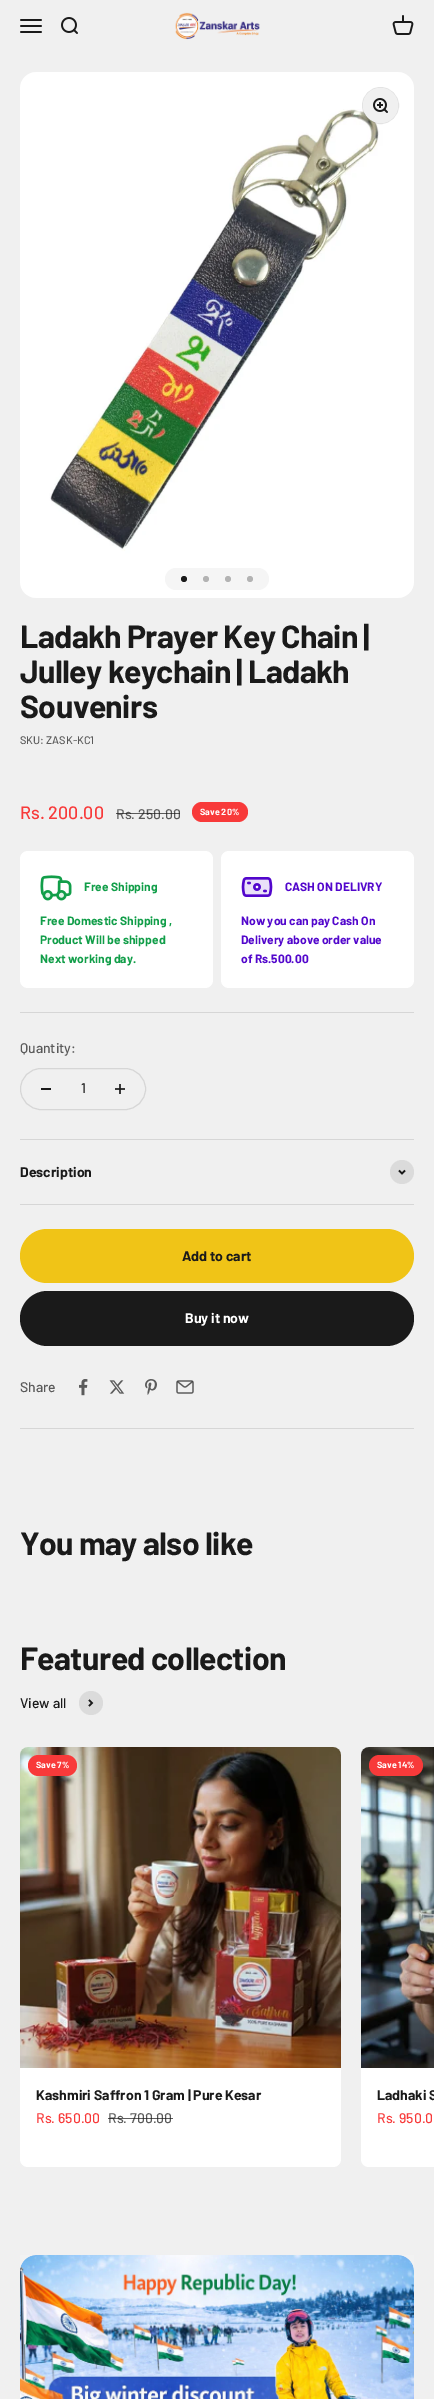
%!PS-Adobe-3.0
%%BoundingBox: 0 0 434 2399
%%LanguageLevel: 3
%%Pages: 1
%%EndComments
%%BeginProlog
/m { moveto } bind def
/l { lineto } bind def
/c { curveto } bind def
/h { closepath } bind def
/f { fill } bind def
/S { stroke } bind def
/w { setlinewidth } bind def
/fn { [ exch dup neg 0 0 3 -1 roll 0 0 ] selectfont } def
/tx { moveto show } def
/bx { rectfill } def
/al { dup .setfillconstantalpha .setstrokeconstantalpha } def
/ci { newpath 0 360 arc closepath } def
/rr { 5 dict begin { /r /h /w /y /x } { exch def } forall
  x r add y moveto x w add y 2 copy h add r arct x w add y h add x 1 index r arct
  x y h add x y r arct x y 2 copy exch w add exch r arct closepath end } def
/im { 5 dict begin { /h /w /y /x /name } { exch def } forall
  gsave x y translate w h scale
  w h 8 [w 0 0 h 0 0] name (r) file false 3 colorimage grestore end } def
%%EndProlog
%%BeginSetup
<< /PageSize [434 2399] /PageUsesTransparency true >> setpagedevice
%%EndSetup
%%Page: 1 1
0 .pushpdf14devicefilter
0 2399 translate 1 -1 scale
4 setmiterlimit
0.941 setgray
0 0 434 2399 bx
0.227 setgray
115 1088 10 2 bx
(image0.raw) 20 19 22 14 im
(image1.raw) 61 17 17 17 im
(image2.raw) 175 12 85 28 im
(image3.raw) 392 15 22 20 im
(image4.raw) 20 72 394 526 im
0.12 al
0.102 setgray
380.5 105.5 18 ci S
1 al
0.941 setgray
380.5 105.5 17.5 ci f
(image5.raw) 373 98 15 15 im
0.961 setgray
165 568 104 22 11 rr f
0.102 setgray
184 579 3 ci f
0.702 setgray
206 579 3 ci f
228 579 3 ci f
250 579 3 ci f
/Barlow-Bold 32 fn
0.102 setgray
20 648 m -0.6 0 (Ladakh Prayer Key Chain |) ashow
20 683 m -0.6 0 (Julley keychain | Ladakh) ashow
20 718 m -0.6 0 (Souvenirs) ashow
/Barlow-Medium 11 fn
0.353 setgray
(SKU: ZASK-KC1) 20 744 tx
/Barlow-Medium 18 fn
0.973 0.227 0.227 setrgbcolor
(Rs. 200.00) 20 819 tx
/Barlow-Medium 14 fn
0.353 setgray
(Rs. 250.00) 116 819 tx
0.7 al
0.102 setgray
116 813 64 1 bx
1 al
0.973 0.227 0.227 setrgbcolor
192 802 56 20 10 rr f
/Barlow-Bold 9 fn
1 setgray
(Save 20%) 200 815 tx
20 851 193 137 8 rr f
(image6.raw) 40 875 32 26 im
/Barlow-Bold 12 fn
0.067 0.62 0.286 setrgbcolor
(Free Shipping) 84 891 tx
(Free Domestic Shipping ,) 40 925 tx
(Product Will be shipped) 40 944 tx
(Next working day.) 40 963 tx
1 setgray
221 851 193 137 8 rr f
(image7.raw) 241 877 32 20 im
0.322 0.024 0.8 setrgbcolor
(CASH ON DELIVRY) 285 891 tx
(Now you can pay Cash On) 241 925 tx
(Delivery above order value) 241 944 tx
(of Rs.500.00) 241 963 tx
0.839 setgray
20 1012 394 1 bx
/Barlow-Medium 14 fn
0.353 setgray
(Quantity:) 20 1053 tx
0.839 setgray
20.5 1068.5 125 41 20.5 rr S
0.102 setgray
41 1088 10 2 bx
(1) 81 1093 tx
0.227 setgray
119 1084 2 10 bx
0.122 setgray
119 1088 2 2 bx
0.839 setgray
20 1139 394 1 bx
20 1204 394 1 bx
/Barlow-Bold 14 fn
0.102 setgray
(Description) 20 1177 tx
0.859 setgray
402 1172 12 ci f
0.102 setgray
1.5 w
399 1170.5 m 402 1173.5 l 405 1170.5 l S
0.941 0.769 0.09 setrgbcolor
20 1229 394 54 27 rr f
0.102 setgray
(Add to cart) 182 1261 tx
20 1291 394 55 27.5 rr f
1 setgray
(Buy it now) 185 1323 tx
/Barlow-Medium 14 fn
0.353 setgray
(Share) 20 1392 tx
(image8.raw) 79 1379 9 17 im
(image9.raw) 109 1380 16 14 im
(image10.raw) 145 1379 12 16 im
(image11.raw) 176 1380 18 14 im
0.839 setgray
20 1428 394 1 bx
/Barlow-Bold 32 fn
0.102 setgray
20 1555 m -0.6 0 (You may also like) ashow
20 1670 m -0.6 0 (Featured collection) ashow
/Barlow-Medium 14 fn
(View all) 20 1708 tx
0.859 setgray
91 1703 12 ci f
0.102 setgray
89 1706 m 92 1703 l 89 1700 l S
1 setgray
20 1747 321 420 8 rr f
(image12.raw) 20 1747 321 321 im
0.973 0.227 0.227 setrgbcolor
28 1755 49 21 10.5 rr f
/Barlow-Bold 9 fn
1 setgray
(Save 7%) 36 1768 tx
/Barlow-Bold 14 fn
0.102 setgray
(Kashmiri Saffron 1 Gram | Pure Kesar) 36 2100 tx
/Barlow-Medium 14 fn
0.973 0.227 0.227 setrgbcolor
(Rs. 650.00) 36 2123 tx
0.353 setgray
(Rs. 700.00) 108 2123 tx
0.7 al
0.102 setgray
108 2118 65 1 bx
1 al
1 setgray
369 1747 m 434 1747 l 434 2167 l 369 2167 l 364.5 2167 361 2163.5 361 2159 c 361 1755 l 361 1750.5 364.5 1747 369 1747 c h f
(image13.raw) 361 1747 73 321 im
0.973 0.227 0.227 setrgbcolor
369 1755 54 21 10.5 rr f
/Barlow-Bold 9 fn
1 setgray
(Save 14%) 377 1768 tx
/Barlow-Bold 14 fn
0.102 setgray
(Ladhaki S) 377 2100 tx
/Barlow-Medium 14 fn
0.973 0.227 0.227 setrgbcolor
(Rs. 950.0) 377 2123 tx
(image14.raw) 20 2255 394 144 im
.poppdf14devicefilter showpage
%%EOF
